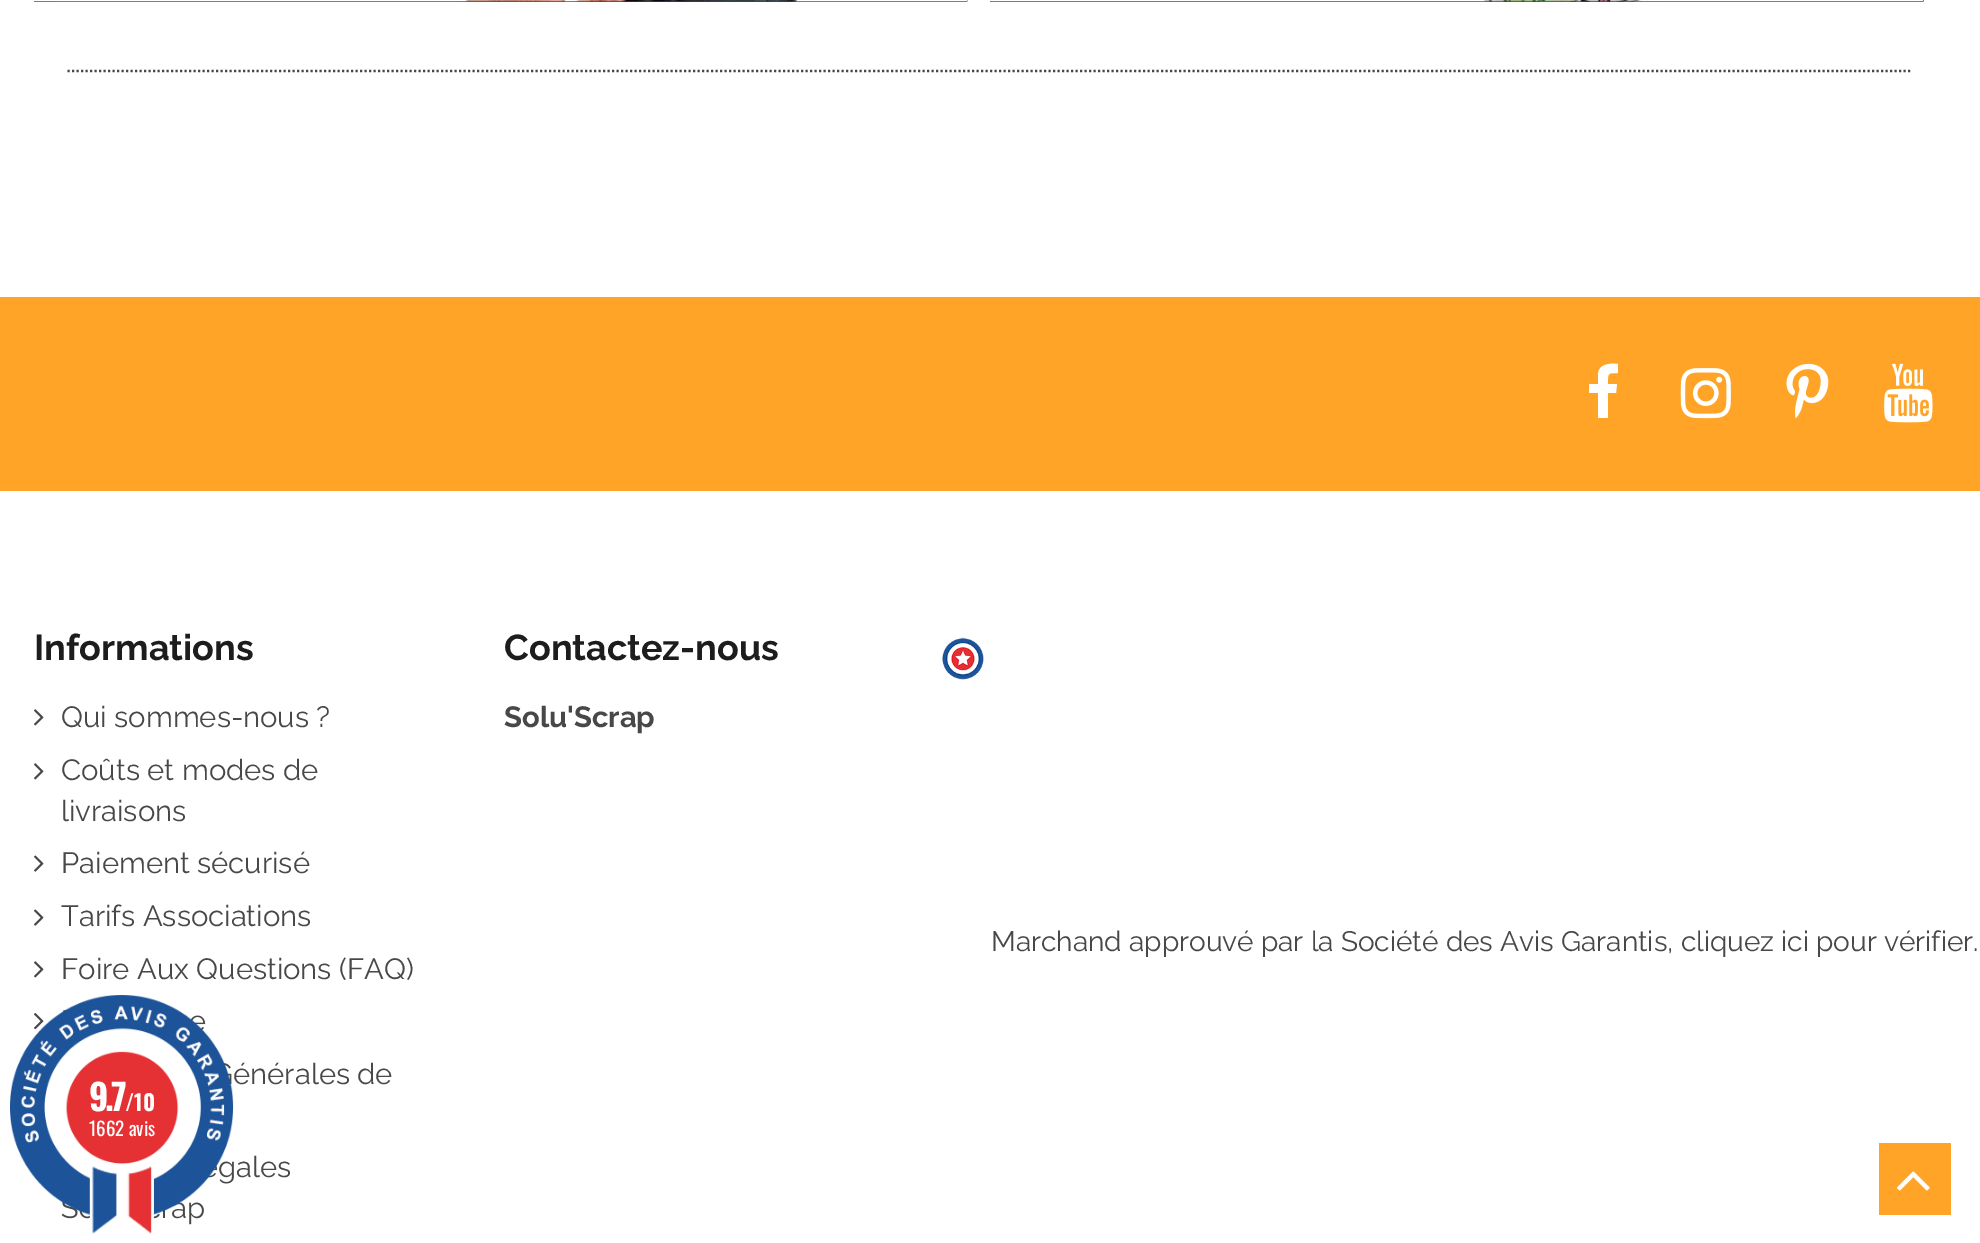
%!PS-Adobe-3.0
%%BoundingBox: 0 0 1980 1243
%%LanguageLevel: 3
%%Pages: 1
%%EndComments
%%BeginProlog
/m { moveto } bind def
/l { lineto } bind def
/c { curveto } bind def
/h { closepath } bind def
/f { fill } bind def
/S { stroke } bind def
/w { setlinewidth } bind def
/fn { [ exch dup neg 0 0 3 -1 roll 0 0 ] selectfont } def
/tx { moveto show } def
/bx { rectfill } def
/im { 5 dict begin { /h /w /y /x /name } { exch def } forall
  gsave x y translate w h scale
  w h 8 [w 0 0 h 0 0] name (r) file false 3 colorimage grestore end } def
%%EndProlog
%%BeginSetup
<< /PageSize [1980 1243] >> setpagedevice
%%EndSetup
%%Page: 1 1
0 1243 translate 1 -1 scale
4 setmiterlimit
1 setgray
0 0 1980 1243 bx
(image0.raw) 34 0 934 2 im
(image1.raw) 990 0 934 2 im
0.282 setgray
2.2 w
[2.25 2.25] 0 setdash
67.5 71 m 1912.5 71 l S
1 0.643 0.153 setrgbcolor
0 297 1980 194 bx
1 setgray
1618 364 m 1618 373 l 1607 373 1608 373 1608 384 c 1617 384 l 1616 393 l 1608 393 l 1608 418 l 1598 418 l 1598 393 l 1589 393 l 1589 384 l 1598 384 l 1598 374 l 1599 364 1609 363 1618 364 c h f
(image2.raw) 1680 368 51 51 im
(image3.raw) 1786 363 43 56 im
(image4.raw) 1884 363 49 60 im
/Raleway-Bold 36 fn
0.114 setgray
(Informations) 34 660 tx
(image5.raw) 34 709 10 17 im
/Raleway-Regular 29.25 fn
0.282 setgray
(Qui sommes-nous ?) 61 727 tx
(image5.raw) 34 763 10 17 im
(Coûts et modes de) 61 780 tx
(livraisons) 61 821 tx
(image6.raw) 34 855 10 17 im
(Paiement sécurisé) 61 873 tx
(image6.raw) 34 909 10 17 im
(Tarifs Associations) 61 926 tx
(image5.raw) 34 961 10 17 im
(Foire Aux Questions \(FAQ\)) 61 979 tx
(image7.raw) 34 1013 10 17 im
(énérales de) 233 1084 tx
(image8.raw) 34 1175 1 1 im
(gales) 218 1177 tx
(p) 187 1218 tx
/Raleway-Bold 36 fn
0.114 setgray
(Contactez-nous) 504 660 tx
/Raleway-Bold 29.25 fn
0.282 setgray
(Solu'Scrap) 504 727 tx
(image9.raw) 942 637 42 43 im
/Raleway-Regular 28.1 fn
(Marchand approuvé par la Société des Avis Garantis, cliquez ici pour vérifier.) 991 951 tx
(image10.raw) 10 995 224 239 im
/Oswald-Bold 36 fn
1 setgray
89 1111 m -3 0 (9.7) ashow
/Oswald-Bold 22 fn
(/10) 125 1111 tx
/Oswald-Regular 19 fn
(1662 avis) 89 1136 tx
1 0.643 0.153 setrgbcolor
1879 1143 72 72 bx
(image11.raw) 1897 1171 33 20 im
showpage
%%EOF
